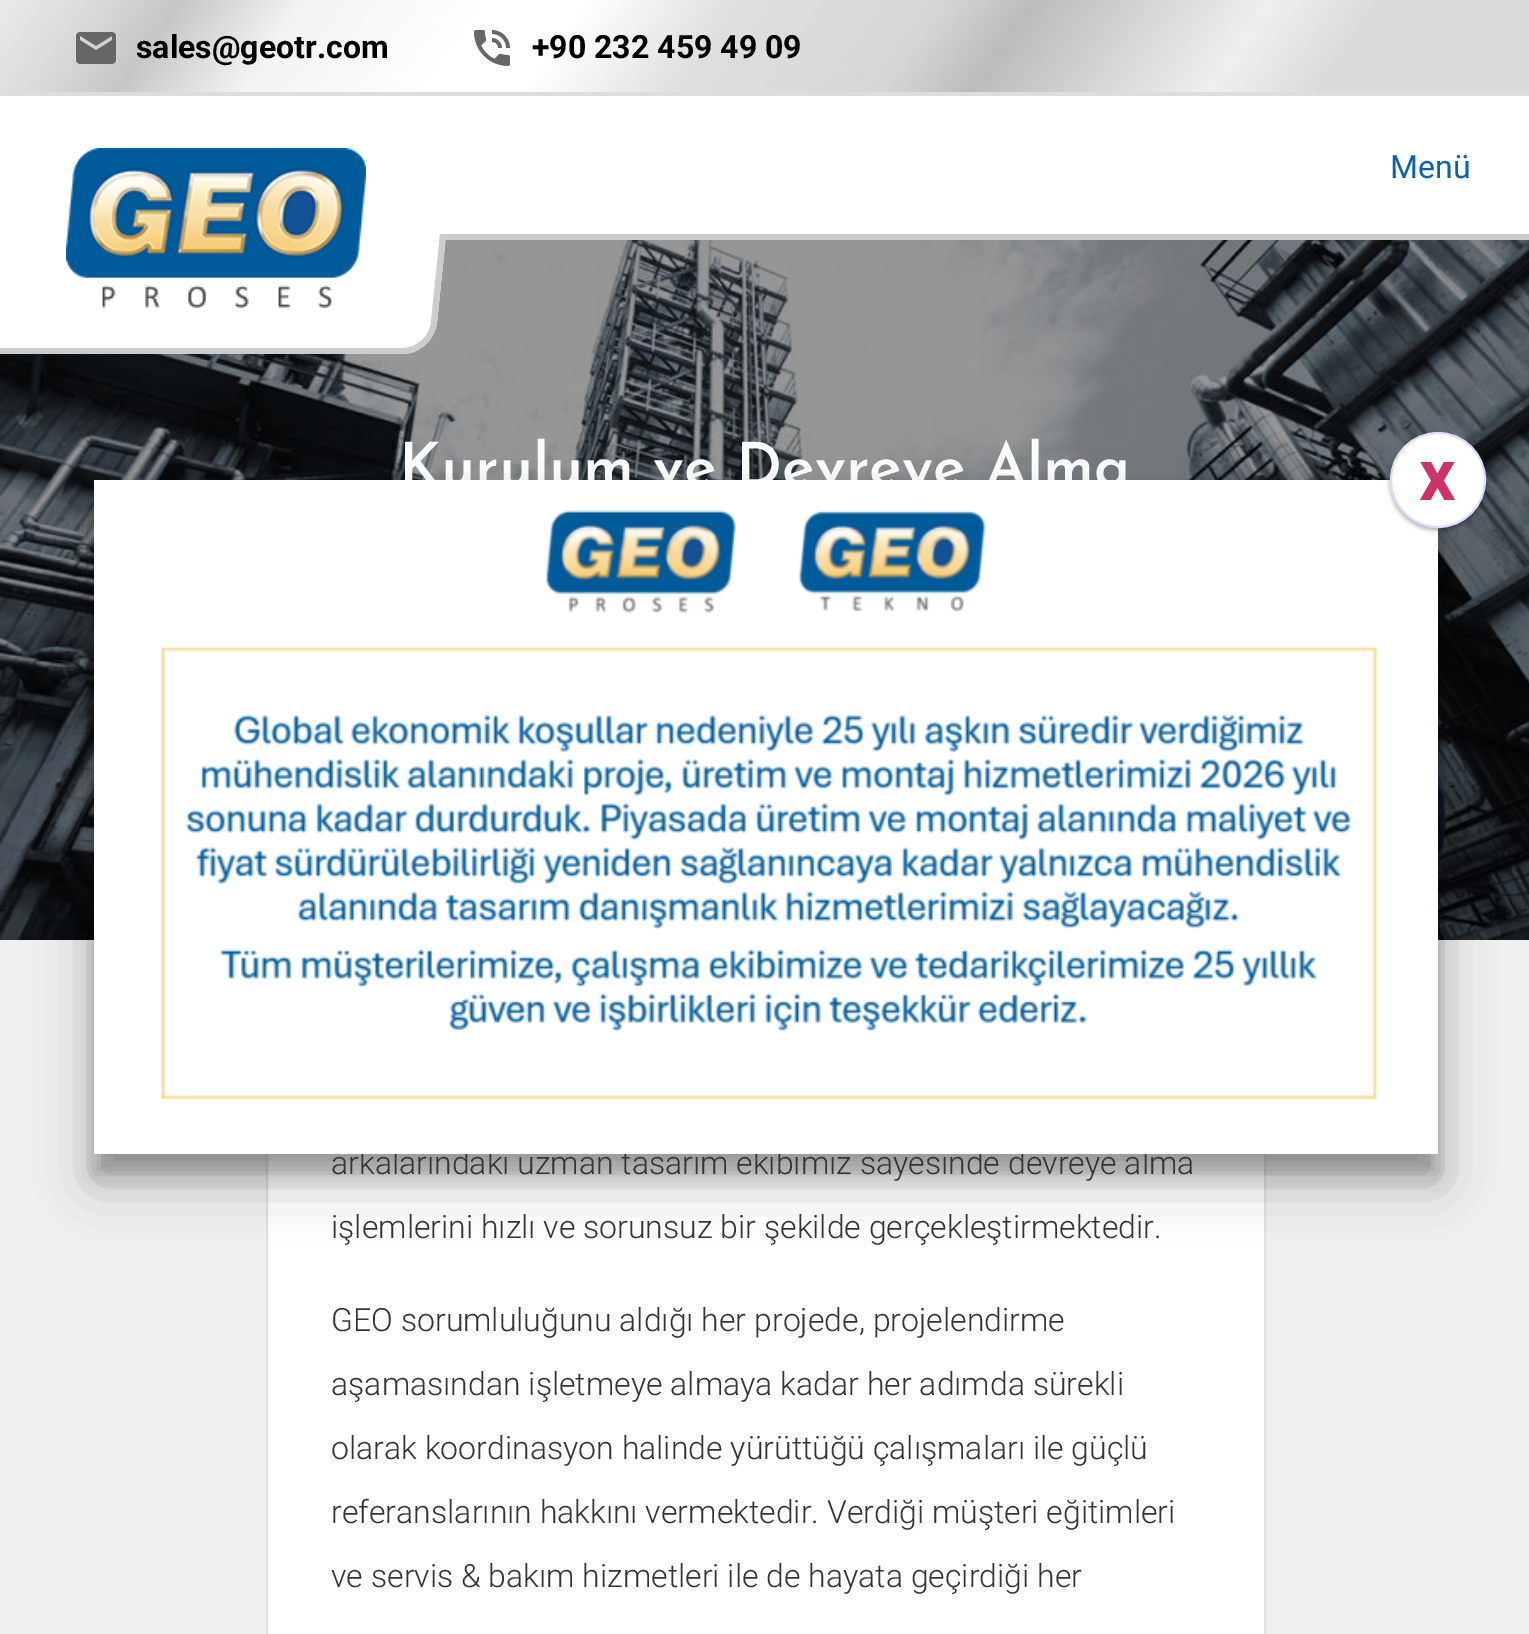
%!PS-Adobe-3.0
%%BoundingBox: 0 0 1529 1634
%%LanguageLevel: 3
%%Pages: 1
%%EndComments
%%BeginProlog
/m { moveto } bind def
/l { lineto } bind def
/c { curveto } bind def
/h { closepath } bind def
/f { fill } bind def
/S { stroke } bind def
/q { gsave } bind def
/Q { grestore } bind def
/w { setlinewidth } bind def
/fn { [ exch dup neg 0 0 3 -1 roll 0 0 ] selectfont } def
/tx { moveto show } def
/bx { rectfill } def
/al { dup .setfillconstantalpha .setstrokeconstantalpha } def
/ci { newpath 0 360 arc closepath } def
/rr { 5 dict begin { /r /h /w /y /x } { exch def } forall
  x r add y moveto x w add y 2 copy h add r arct x w add y h add x 1 index r arct
  x y h add x y r arct x y 2 copy exch w add exch r arct closepath end } def
/sh { 12 dict begin { /a /b /q /h /w /y /x } { exch def } forall gsave /was 0 def
  9 -2 -9 { dup b mul 4 div /e exch def 1 sub .425 mul 2.718 exch exp 1 add a .99 .min exch div /now exch def
    1 1 now sub 1 was sub div sub al /was now def
    w h .min e 2 mul add 0 gt { x e sub y e sub w e 2 mul add h e 2 mul add
      q e add b .6 mul add w h .min 2 div e add .min 0 .max rr fill } if } for grestore end } def
/im { 5 dict begin { /h /w /y /x /name } { exch def } forall
  gsave x y translate w h scale
  w h 8 [w 0 0 h 0 0] name (r) file false 3 colorimage grestore end } def
%%EndProlog
%%BeginSetup
<< /PageSize [1529 1634] /PageUsesTransparency true >> setpagedevice
%%EndSetup
%%Page: 1 1
0 .pushpdf14devicefilter
0 1634 translate 1 -1 scale
4 setmiterlimit
0.941 setgray
0 0 1529 1634 bx
(image0.raw) 0 0 1529 92 im
0.867 setgray
0 92 1529 4 bx
(image1.raw) 76 32 40 32 im
/Roboto-Bold 32 fn
0 setgray
(sales@geotr.com) 136 58 tx
(image2.raw) 474 30 36 36 im
(+90 232 459 49 09) 532 58 tx
1 setgray
0 96 1529 138 bx
0.8 setgray
445 234 1084 6 bx
(image4.raw) 0 240 1529 700 im
1 setgray
-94 234 m 446 234 l 437 322 l 435 340 419 354 402 354 c -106 354 l h f
0.8 setgray
-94 234 m 446 234 l 437 322 l 435 340 419 354 402 354 c -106 354 l h -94 234 m 440 234 l 431 322 l 430 336 417 348 402 348 c -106 348 l h eofill
(image3.raw) 66 148 300 161 im
/Roboto-Regular 32 fn
0.039 0.38 0.675 setrgbcolor
(Menü) 1390 178 tx
/JosefinSans-SemiBold 60.75 fn
1 setgray
(Kurulum ve Devreye Alma) 399 486 tx
268 1154 996 480 bx
0.878 setgray
2 w
267 821 998 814 rectstroke
0 setgray
94 500 1344 674 0 10 0.22 sh
94 508 1344 674 0 28 0.25 sh
/Roboto-Light 32 fn
0.2 setgray
(arkalarındaki uzman tasarım ekibimiz sayesinde devreye alma) 331 1174 tx
1 setgray
94 480 1344 674 bx
0 setgray
1390 434 96 96 48 2 0.24 sh
1390 434 96 96 48 3 0.12 sh
1 setgray
1438 480 47 ci q f Q
0.867 0.867 1 setrgbcolor
S
/Roboto-Bold 72 fn
0.8 0.2 0.4 setrgbcolor
(x) 1419 500 tx
(image5.raw) 160 510 1218 590 im
/Roboto-Light 32 fn
0.2 setgray
(işlemlerini hızlı ve sorunsuz bir şekilde gerçekleştirmektedir.) 331 1238 tx
(GEO sorumluluğunu aldığı her projede, projelendirme) 331 1331 tx
(aşamasından işletmeye almaya kadar her adımda sürekli) 331 1395 tx
(olarak koordinasyon halinde yürüttüğü çalışmaları ile güçlü) 331 1459 tx
(referanslarının hakkını vermektedir. Verdiği müşteri eğitimleri) 331 1523 tx
(ve servis & bakım hizmetleri ile de hayata geçirdiği her) 331 1587 tx
.poppdf14devicefilter showpage
%%EOF
